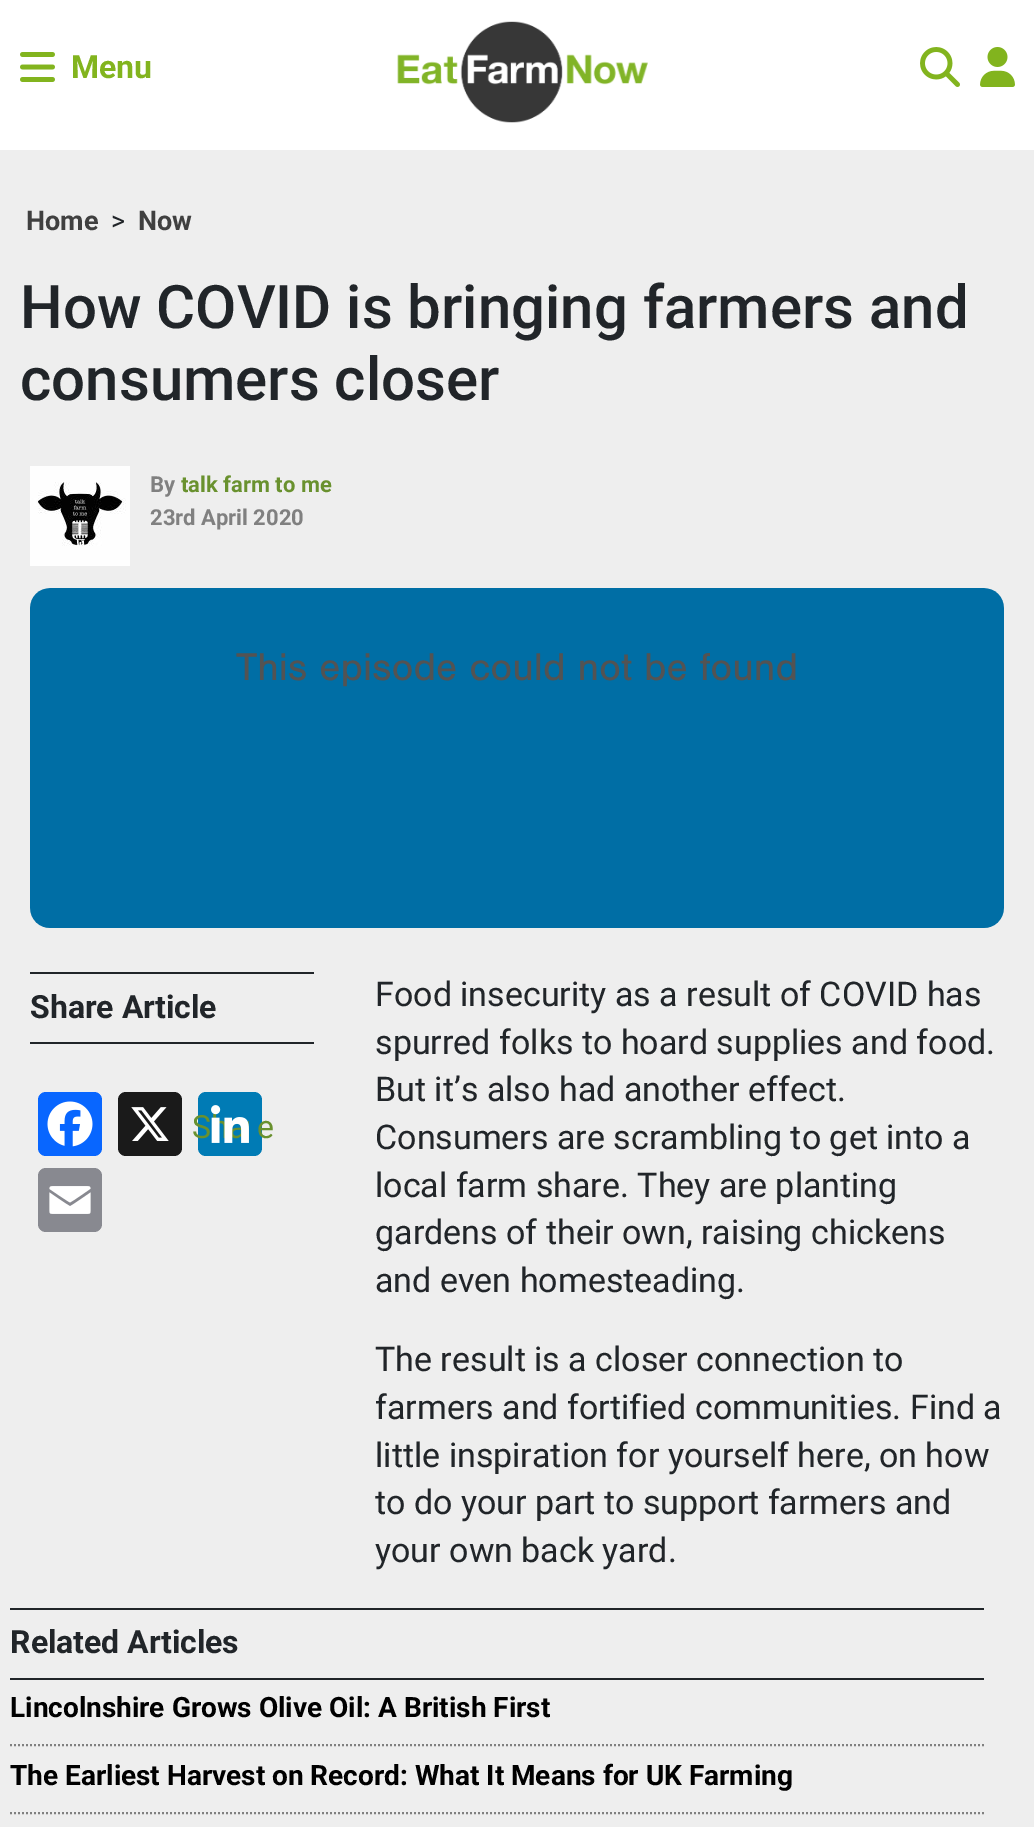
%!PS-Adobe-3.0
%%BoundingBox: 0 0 1034 1827
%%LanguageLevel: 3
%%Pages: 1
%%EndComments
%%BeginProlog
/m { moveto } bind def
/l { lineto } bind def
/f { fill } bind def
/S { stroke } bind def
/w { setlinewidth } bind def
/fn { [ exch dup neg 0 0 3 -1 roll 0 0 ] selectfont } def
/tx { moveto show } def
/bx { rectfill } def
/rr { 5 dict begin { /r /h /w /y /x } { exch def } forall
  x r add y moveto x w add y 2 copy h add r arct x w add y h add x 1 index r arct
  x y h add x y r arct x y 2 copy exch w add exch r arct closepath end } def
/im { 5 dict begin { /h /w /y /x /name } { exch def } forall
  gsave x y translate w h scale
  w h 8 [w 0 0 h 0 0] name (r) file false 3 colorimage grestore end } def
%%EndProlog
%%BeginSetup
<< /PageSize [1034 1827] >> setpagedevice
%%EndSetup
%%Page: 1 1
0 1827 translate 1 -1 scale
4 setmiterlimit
0.933 setgray
0 0 1034 1827 bx
1 setgray
0 0 1034 150 bx
(image0.raw) 20 52 35 30 im
/Roboto-Bold 32 fn
0.51 0.706 0.118 setrgbcolor
(Menu) 71 78 tx
(image1.raw) 397 21 251 102 im
(image2.raw) 920 47 40 40 im
(image3.raw) 980 47 35 40 im
/Roboto-Bold 27 fn
0.251 setgray
(Home) 26 230 tx
/Roboto-Regular 27 fn
0.129 0.145 0.161 setrgbcolor
(>) 111 230 tx
/Roboto-Bold 27 fn
0.251 setgray
(Now) 138 230 tx
/Roboto-Medium 60 fn
0.129 0.145 0.161 setrgbcolor
(How COVID is bringing farmers and) 20 328 tx
(consumers closer) 20 400 tx
(image4.raw) 30 466 100 100 im
/Roboto-Bold 22 fn
0.502 setgray
(By) 150 492 tx
0.412 0.569 0.18 setrgbcolor
(talk farm to me) 181 492 tx
0.502 setgray
(23rd April 2020) 150 525 tx
(image5.raw) 30 588 974 340 im
0.129 0.145 0.161 setrgbcolor
30 972 284 2 bx
30 1042 284 2 bx
/Roboto-Bold 32 fn
(Share Article) 30 1018 tx
0.031 0.4 1 setrgbcolor
38 1092 64 64 8 rr f
(image6.raw) 47 1101 46 46 im
0 0.482 0.71 setrgbcolor
198 1092 64 64 8 rr f
(image7.raw) 211 1105 38 38 im
0.102 setgray
118 1092 64 64 8 rr f
(image8.raw) 131 1107 38 34 im
/Roboto-Regular 32 fn
0.412 0.569 0.18 setrgbcolor
(S) 192 1138 tx
(e) 257 1138 tx
0.533 0.537 0.565 setrgbcolor
38 1168 64 64 8 rr f
(image9.raw) 49 1186 42 28 im
/Roboto-Regular 34 fn
0.129 0.145 0.161 setrgbcolor
(Food insecurity as a result of COVID has) 375 1006 tx
(spurred folks to hoard supplies and food.) 375 1054 tx
(But it’s also had another effect.) 375 1101 tx
(Consumers are scrambling to get into a) 375 1149 tx
(local farm share. They are planting) 375 1197 tx
(gardens of their own, raising chickens) 375 1244 tx
(and even homesteading.) 375 1292 tx
(The result is a closer connection to) 375 1371 tx
(farmers and fortified communities. Find a) 375 1419 tx
(little inspiration for yourself here, on how) 375 1467 tx
(to do your part to support farmers and) 375 1514 tx
(your own back yard.) 375 1562 tx
10 1608 974 2 bx
10 1678 974 2 bx
/Roboto-Bold 32 fn
(Related Articles) 10 1653 tx
0.502 setgray
2 w
[2 2] 0 setdash
10 1745 m 984 1745 l S
/Roboto-Bold 28 fn
0 setgray
(Lincolnshire Grows Olive Oil: A British First) 10 1717 tx
0.502 setgray
10 1813 m 984 1813 l S
0 setgray
(The Earliest Harvest on Record: What It Means for UK Farming) 10 1785 tx
showpage
%%EOF
